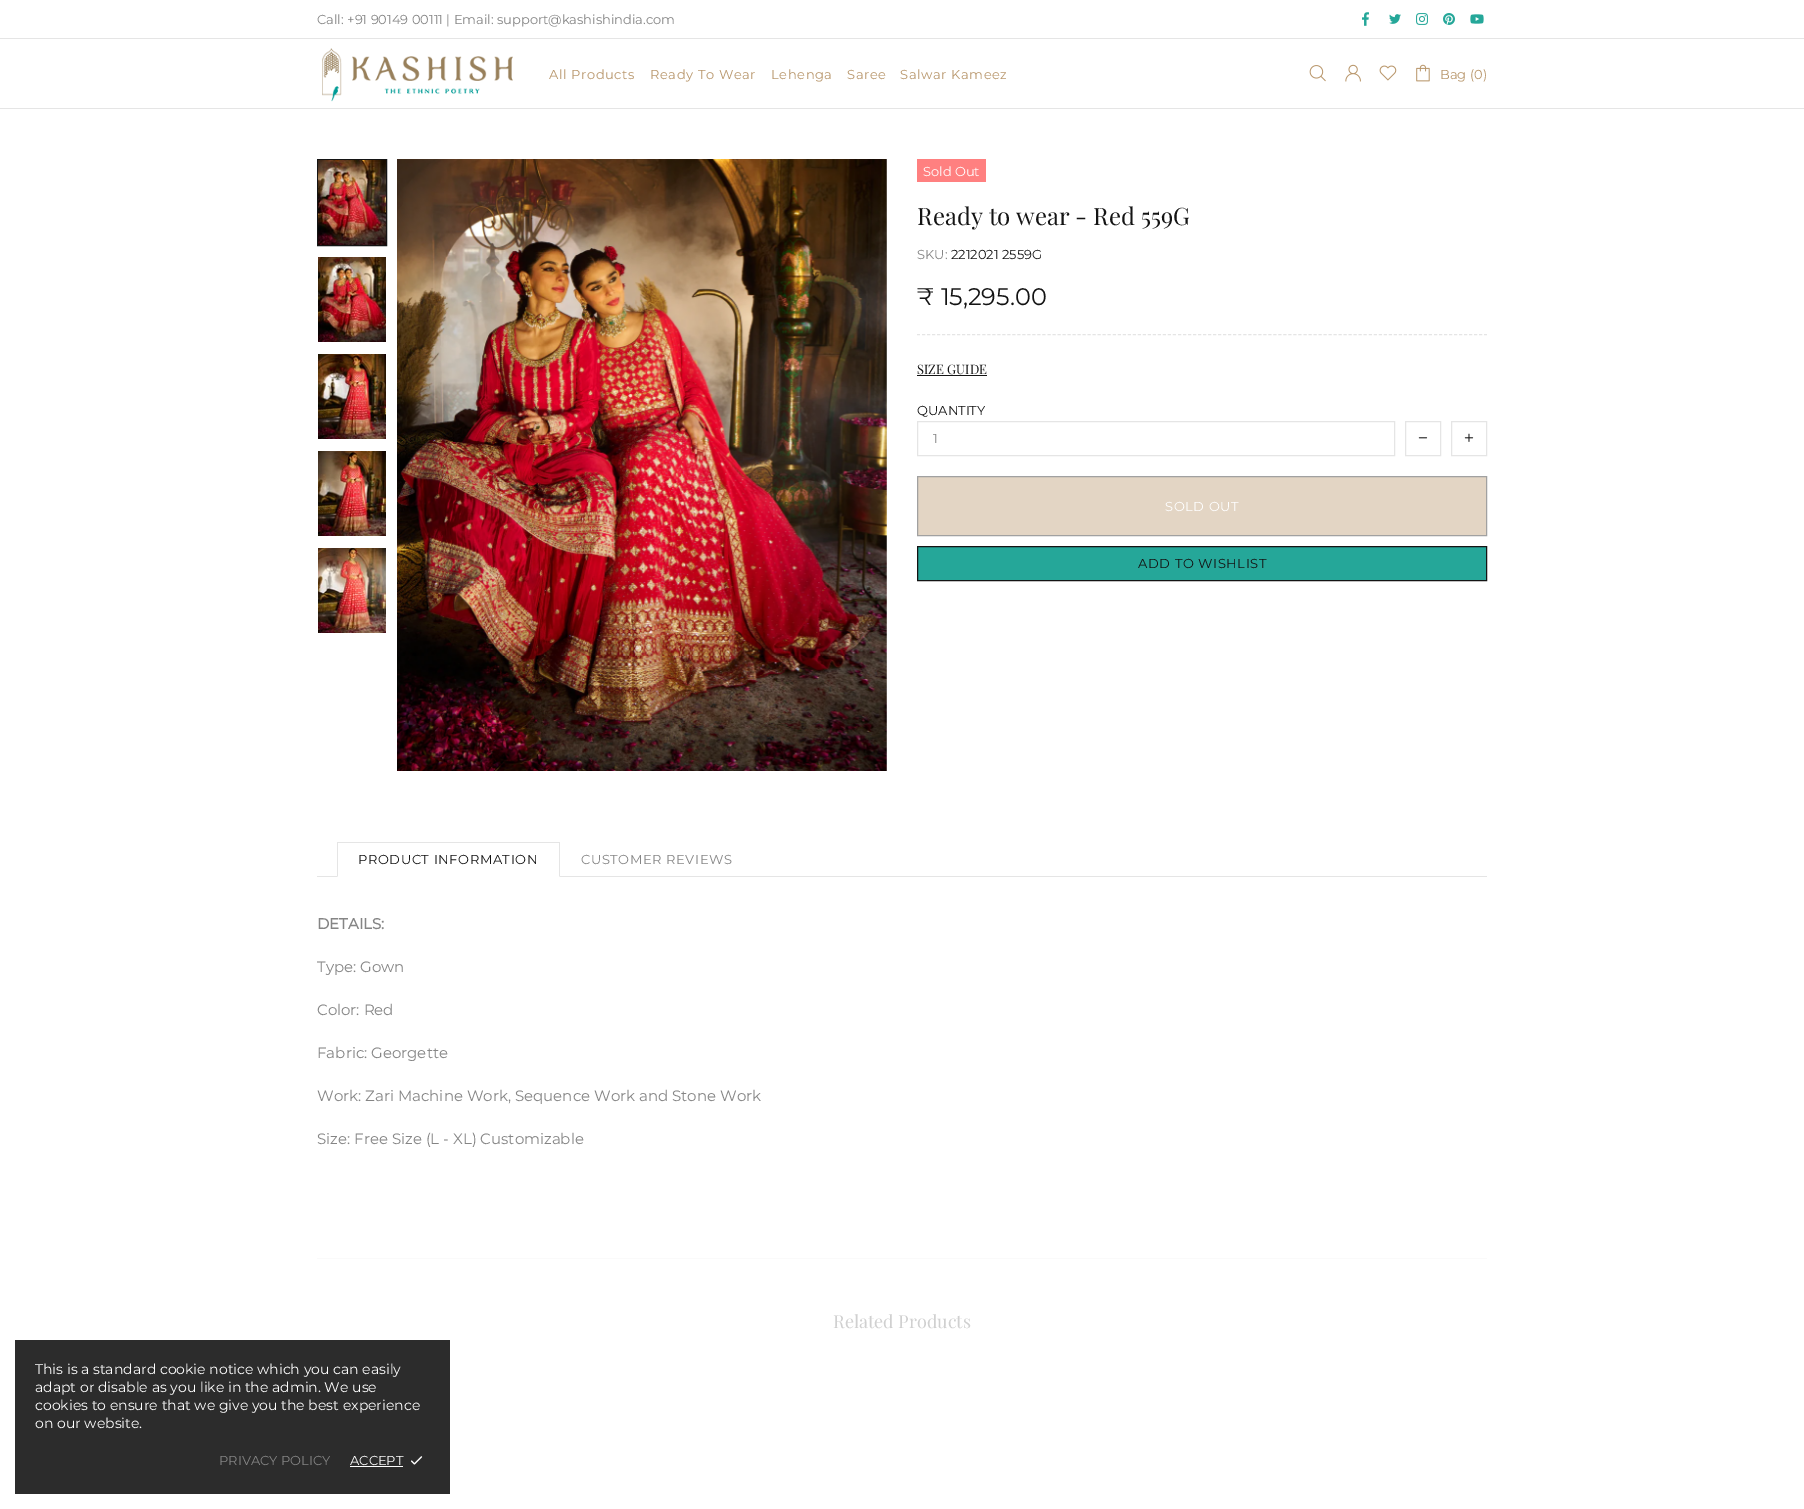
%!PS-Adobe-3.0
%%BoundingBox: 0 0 1804 1509
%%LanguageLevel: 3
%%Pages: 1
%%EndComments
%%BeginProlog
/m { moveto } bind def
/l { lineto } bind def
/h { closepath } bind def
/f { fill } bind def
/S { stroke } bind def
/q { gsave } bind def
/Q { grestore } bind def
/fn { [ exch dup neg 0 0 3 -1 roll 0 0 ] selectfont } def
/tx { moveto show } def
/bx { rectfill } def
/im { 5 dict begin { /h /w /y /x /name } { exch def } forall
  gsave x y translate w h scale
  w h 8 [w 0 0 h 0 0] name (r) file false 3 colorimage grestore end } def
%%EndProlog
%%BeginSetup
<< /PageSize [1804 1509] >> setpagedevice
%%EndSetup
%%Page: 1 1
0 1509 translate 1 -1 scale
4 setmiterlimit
1 setgray
0 0 1804 1509 bx
/Montserrat-Regular 13 fn
0.522 setgray
(Call: +91 90149 00111 | Email: support@kashishindia.com) 317 24 tx
(image0.raw) 1362 12 7 14 im
(image1.raw) 1389 14 12 10 im
(image2.raw) 1416 13 12 12 im
(image3.raw) 1443 13 12 12 im
(image4.raw) 1470 14 14 10 im
0.898 setgray
0 38 1804 1 bx
(image5.raw) 322 48 191 54 im
0.725 0.592 0.424 setrgbcolor
549 79 m 0.6 0 (All Products) ashow
650 79 m 0.6 0 (Ready To Wear) ashow
771 79 m 0.6 0 (Lehenga) ashow
847 79 m 0.6 0 (Saree) ashow
900 79 m 0.6 0 (Salwar Kameez) ashow
(image6.raw) 1309 65 17 17 im
(image7.raw) 1345 64 16 18 im
(image8.raw) 1379 65 18 16 im
(image9.raw) 1416 64 14 18 im
(Bag \(0\)) 1440 79 tx
0.898 setgray
0 108 1804 1 bx
0.078 setgray
317.5 159.5 69 86 rectstroke
(image10.raw) 318 160 68 85 im
(image11.raw) 318 257 68 85 im
(image12.raw) 318 354 68 85 im
(image13.raw) 318 451 68 85 im
(image14.raw) 318 548 68 85 im
(image15.raw) 397 159 490 612 im
1 0.502 0.502 setrgbcolor
917 159 69 23 bx
1 setgray
(Sold Out) 923 176 tx
/PlayfairDisplay-Regular 24 fn
0.078 setgray
(Ready to wear - Red 559G) 917 225 tx
/Montserrat-Regular 13 fn
0.522 setgray
(SKU:) 917 259 tx
0.078 setgray
(2212021 2559G) 951 259 tx
/Montserrat-Regular 24 fn
(₹ 15,295.00) 917 305 tx
0.898 setgray
[3 2.02] 0 setdash
917 334.5 m 1487 334.5 l S
/PlayfairDisplay-Regular 13 fn
0.078 setgray
(SIZE GUIDE) 917 374 tx
917 375 70 1 bx
/Montserrat-Regular 13 fn
(QUANTITY) 917 415 tx
0.898 setgray
[] 0 setdash
917.5 421.5 477 34 rectstroke
0.522 setgray
(1) 933 443 tx
0.898 setgray
1405.5 421.5 35 34 rectstroke
(image16.raw) 1418 437 10 2 im
1451.5 421.5 35 34 rectstroke
(image17.raw) 1464 433 10 9 im
0.89 0.835 0.769 setrgbcolor
917.5 476.5 m 1486.5 476.5 l 1486.5 535.5 l 917.5 535.5 l h q f Q
0.631 setgray
S
1 setgray
1165 511 m 0.6 0 (SOLD OUT) ashow
0.145 0.655 0.6 setrgbcolor
917.5 546.5 m 1486.5 546.5 l 1486.5 580.5 l 917.5 580.5 l h q f Q
0.078 setgray
S
1138 568 m 0.6 0 (ADD TO WISHLIST) ashow
0.898 setgray
317 876 1170 1 bx
1 setgray
337 876 223 1 bx
0.898 setgray
337 842 223 1 bx
560 842 m 560 877 l 559 876 l 559 843 l h f
337 877 m 337 842 l 338 843 l 338 876 l h f
0.078 setgray
358 864 m 0.6 0 (PRODUCT INFORMATION) ashow
0.522 setgray
581 864 m 0.6 0 (CUSTOMER REVIEWS) ashow
/Montserrat-Bold 15 fn
(DETAILS:) 317 929 tx
/Montserrat-Regular 15 fn
(Type: Gown) 317 972 tx
(Color: Red) 317 1015 tx
(Fabric: Georgette) 317 1058 tx
(Work: Zari Machine Work, Sequence Work and Stone Work) 317 1101 tx
(Size: Free Size \(L - XL\) Customizable) 317 1144 tx
0.98 setgray
317 1258 1170 1 bx
/PlayfairDisplay-Regular 18 fn
0.816 setgray
(Related Products) 833 1328 tx
0.173 setgray
15 1340 435 154 bx
/Montserrat-Regular 14 fn
1 setgray
(This is a standard cookie notice which you can easily) 35 1374 tx
(adapt or disable as you like in the admin. We use) 35 1392 tx
(cookies to ensure that we give you the best experience) 35 1410 tx
(on our website.) 35 1428 tx
/Montserrat-Regular 13 fn
0.522 setgray
(PRIVACY POLICY) 219 1465 tx
1 setgray
(ACCEPT) 350 1465 tx
350 1466 53 1 bx
(image18.raw) 411 1456 12 9 im
showpage
%%EOF
